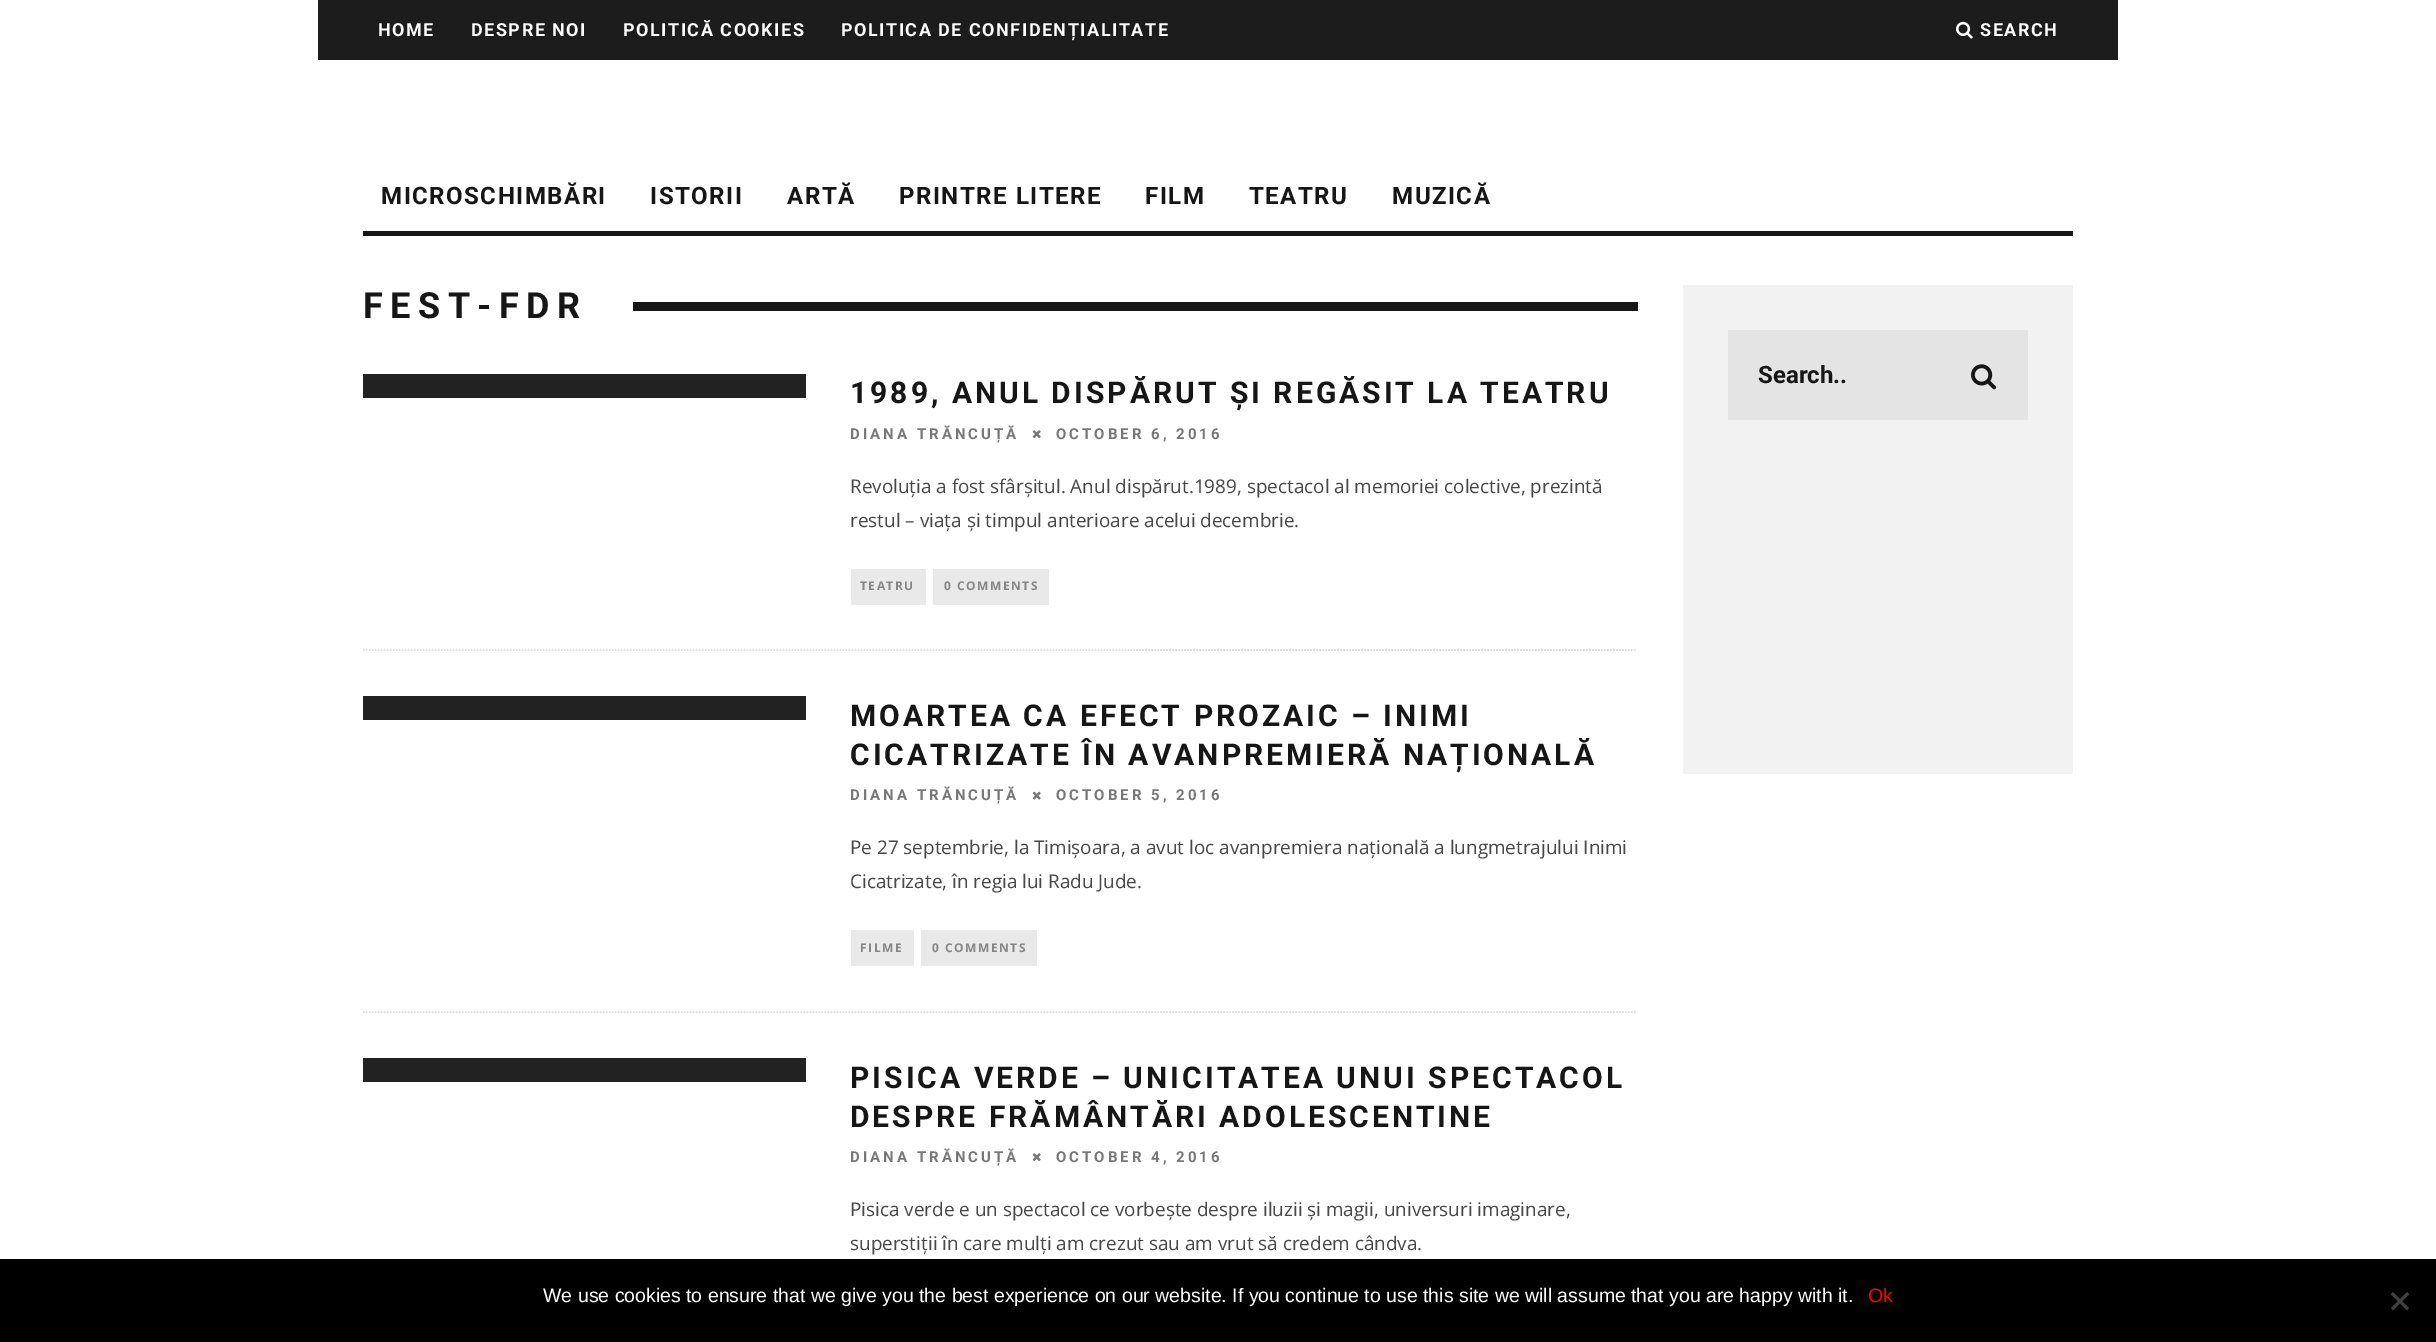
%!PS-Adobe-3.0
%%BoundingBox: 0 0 2436 1342
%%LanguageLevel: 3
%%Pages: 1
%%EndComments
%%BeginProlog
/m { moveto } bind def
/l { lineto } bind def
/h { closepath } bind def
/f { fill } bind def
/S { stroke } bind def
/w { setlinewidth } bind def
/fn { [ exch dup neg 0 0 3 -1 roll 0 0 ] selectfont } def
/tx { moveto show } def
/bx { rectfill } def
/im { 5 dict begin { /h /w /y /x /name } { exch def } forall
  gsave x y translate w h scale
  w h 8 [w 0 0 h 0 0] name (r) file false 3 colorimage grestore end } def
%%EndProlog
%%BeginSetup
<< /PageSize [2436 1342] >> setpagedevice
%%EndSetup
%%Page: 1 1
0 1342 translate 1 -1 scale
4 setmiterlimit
1 setgray
0 0 2436 1342 bx
0.11 setgray
318 0 1800 60 bx
/Roboto-Bold 18 fn
1 setgray
378 36 m 1.5 0 (HOME) ashow
471 36 m 1.5 0 (DESPRE NOI) ashow
623 36 m 1.5 0 (POLITICĂ COOKIES) ashow
841 36 m 1.5 0 (POLITICA DE CONFIDENȚIALITATE) ashow
(image0.raw) 1956 21 17 18 im
1980 36 m 1.5 0 (SEARCH) ashow
0.086 setgray
363 231 1710 5 bx
/Roboto-Bold 24 fn
381 204 m 1.5 0 (MICROSCHIMBĂRI) ashow
650 204 m 1.5 0 (ISTORII) ashow
787 204 m 1.5 0 (ARTĂ) ashow
899 204 m 1.5 0 (PRINTRE LITERE) ashow
1145 204 m 1.5 0 (FILM) ashow
1249 204 m 1.5 0 (TEATRU) ashow
1392 204 m 1.5 0 (MUZICĂ) ashow
/Roboto-Bold 36 fn
363 318 m 7.5 0 (FEST-FDR) ashow
633 302 1005 9 bx
0.867 setgray
1.5 w
[1.5 1.5] 0 setdash
363 650 m 1638 650 l S
0.133 setgray
363 374 443 24 bx
/Roboto-Bold 30 fn
0.086 setgray
850 403 m 3 0 (1989, ANUL DISPĂRUT ȘI REGĂSIT LA TEATRU) ashow
/Roboto-Bold 15 fn
0.467 setgray
850 439 m 3 0 (DIANA TRĂNCUȚĂ) ashow
(image1.raw) 1032 430 9 9 im
1056 439 m 3 0 (OCTOBER 6, 2016) ashow
/OpenSans-Regular 18.9 fn
0.282 setgray
(Revoluția a fost sfârșitul. Anul dispărut.1989, spectacol al memoriei colective, prezintă) 850 493 tx
(restul – viața și timpul anterioare acelui decembrie.) 850 527 tx
0.914 setgray
851 569 75 36 bx
/OpenSans-Bold 12 fn
0.525 setgray
860 590 m 1.5 0 (TEATRU) ashow
0.914 setgray
933 569 116 36 bx
0.525 setgray
944 590 m 1.5 0 (0 COMMENTS) ashow
0.867 setgray
363 1012 m 1638 1012 l S
0.133 setgray
363 696 443 24 bx
/Roboto-Bold 30 fn
0.086 setgray
850 726 m 3 0 (MOARTEA CA EFECT PROZAIC – INIMI) ashow
850 765 m 3 0 (CICATRIZATE ÎN AVANPREMIERĂ NAȚIONALĂ) ashow
/Roboto-Bold 15 fn
0.467 setgray
850 800 m 3 0 (DIANA TRĂNCUȚĂ) ashow
(image2.raw) 1032 791 9 9 im
1056 800 m 3 0 (OCTOBER 5, 2016) ashow
/OpenSans-Regular 18.9 fn
0.282 setgray
(Pe 27 septembrie, la Timișoara, a avut loc avanpremiera națională a lungmetrajului Inimi) 850 854 tx
(Cicatrizate, în regia lui Radu Jude.) 850 888 tx
0.914 setgray
851 930 63 36 bx
/OpenSans-Bold 12 fn
0.525 setgray
860 952 m 1.5 0 (FILME) ashow
0.914 setgray
921 930 116 36 bx
0.525 setgray
932 952 m 1.5 0 (0 COMMENTS) ashow
0.133 setgray
363 1058 443 24 bx
/Roboto-Bold 30 fn
0.086 setgray
850 1088 m 3 0 (PISICA VERDE – UNICITATEA UNUI SPECTACOL) ashow
850 1127 m 3 0 (DESPRE FRĂMÂNTĂRI ADOLESCENTINE) ashow
/Roboto-Bold 15 fn
0.467 setgray
850 1162 m 3 0 (DIANA TRĂNCUȚĂ) ashow
(image1.raw) 1032 1153 9 9 im
1056 1162 m 3 0 (OCTOBER 4, 2016) ashow
/OpenSans-Regular 18.9 fn
0.282 setgray
(Pisica verde e un spectacol ce vorbește despre iluzii și magii, universuri imaginare,) 850 1216 tx
(superstiții în care mulți am crezut sau am vrut să credem cândva.) 850 1250 tx
0.949 setgray
1683 285 390 489 bx
0.894 setgray
1728 330 300 90 bx
/Roboto-Bold 24 fn
0.086 setgray
(Search..) 1758 383 tx
(image3.raw) 1971 364 26 26 im
0 setgray
0 1259 2436 83 bx
/LiberationSans-Regular 19.5 fn
1 setgray
(We use cookies to ensure that we give you the best experience on our website. If you continue to use this site we will assume that you are happy with it.) 543 1302 tx
1 0 0 setrgbcolor
(Ok) 1868 1302 tx
0.251 setgray
2407 1292 m 2409 1294.5 l 2393 1310.5 l 2391 1308 l h f
2391 1294.5 m 2393 1292 l 2409 1308 l 2407 1310.5 l h f
showpage
%%EOF
